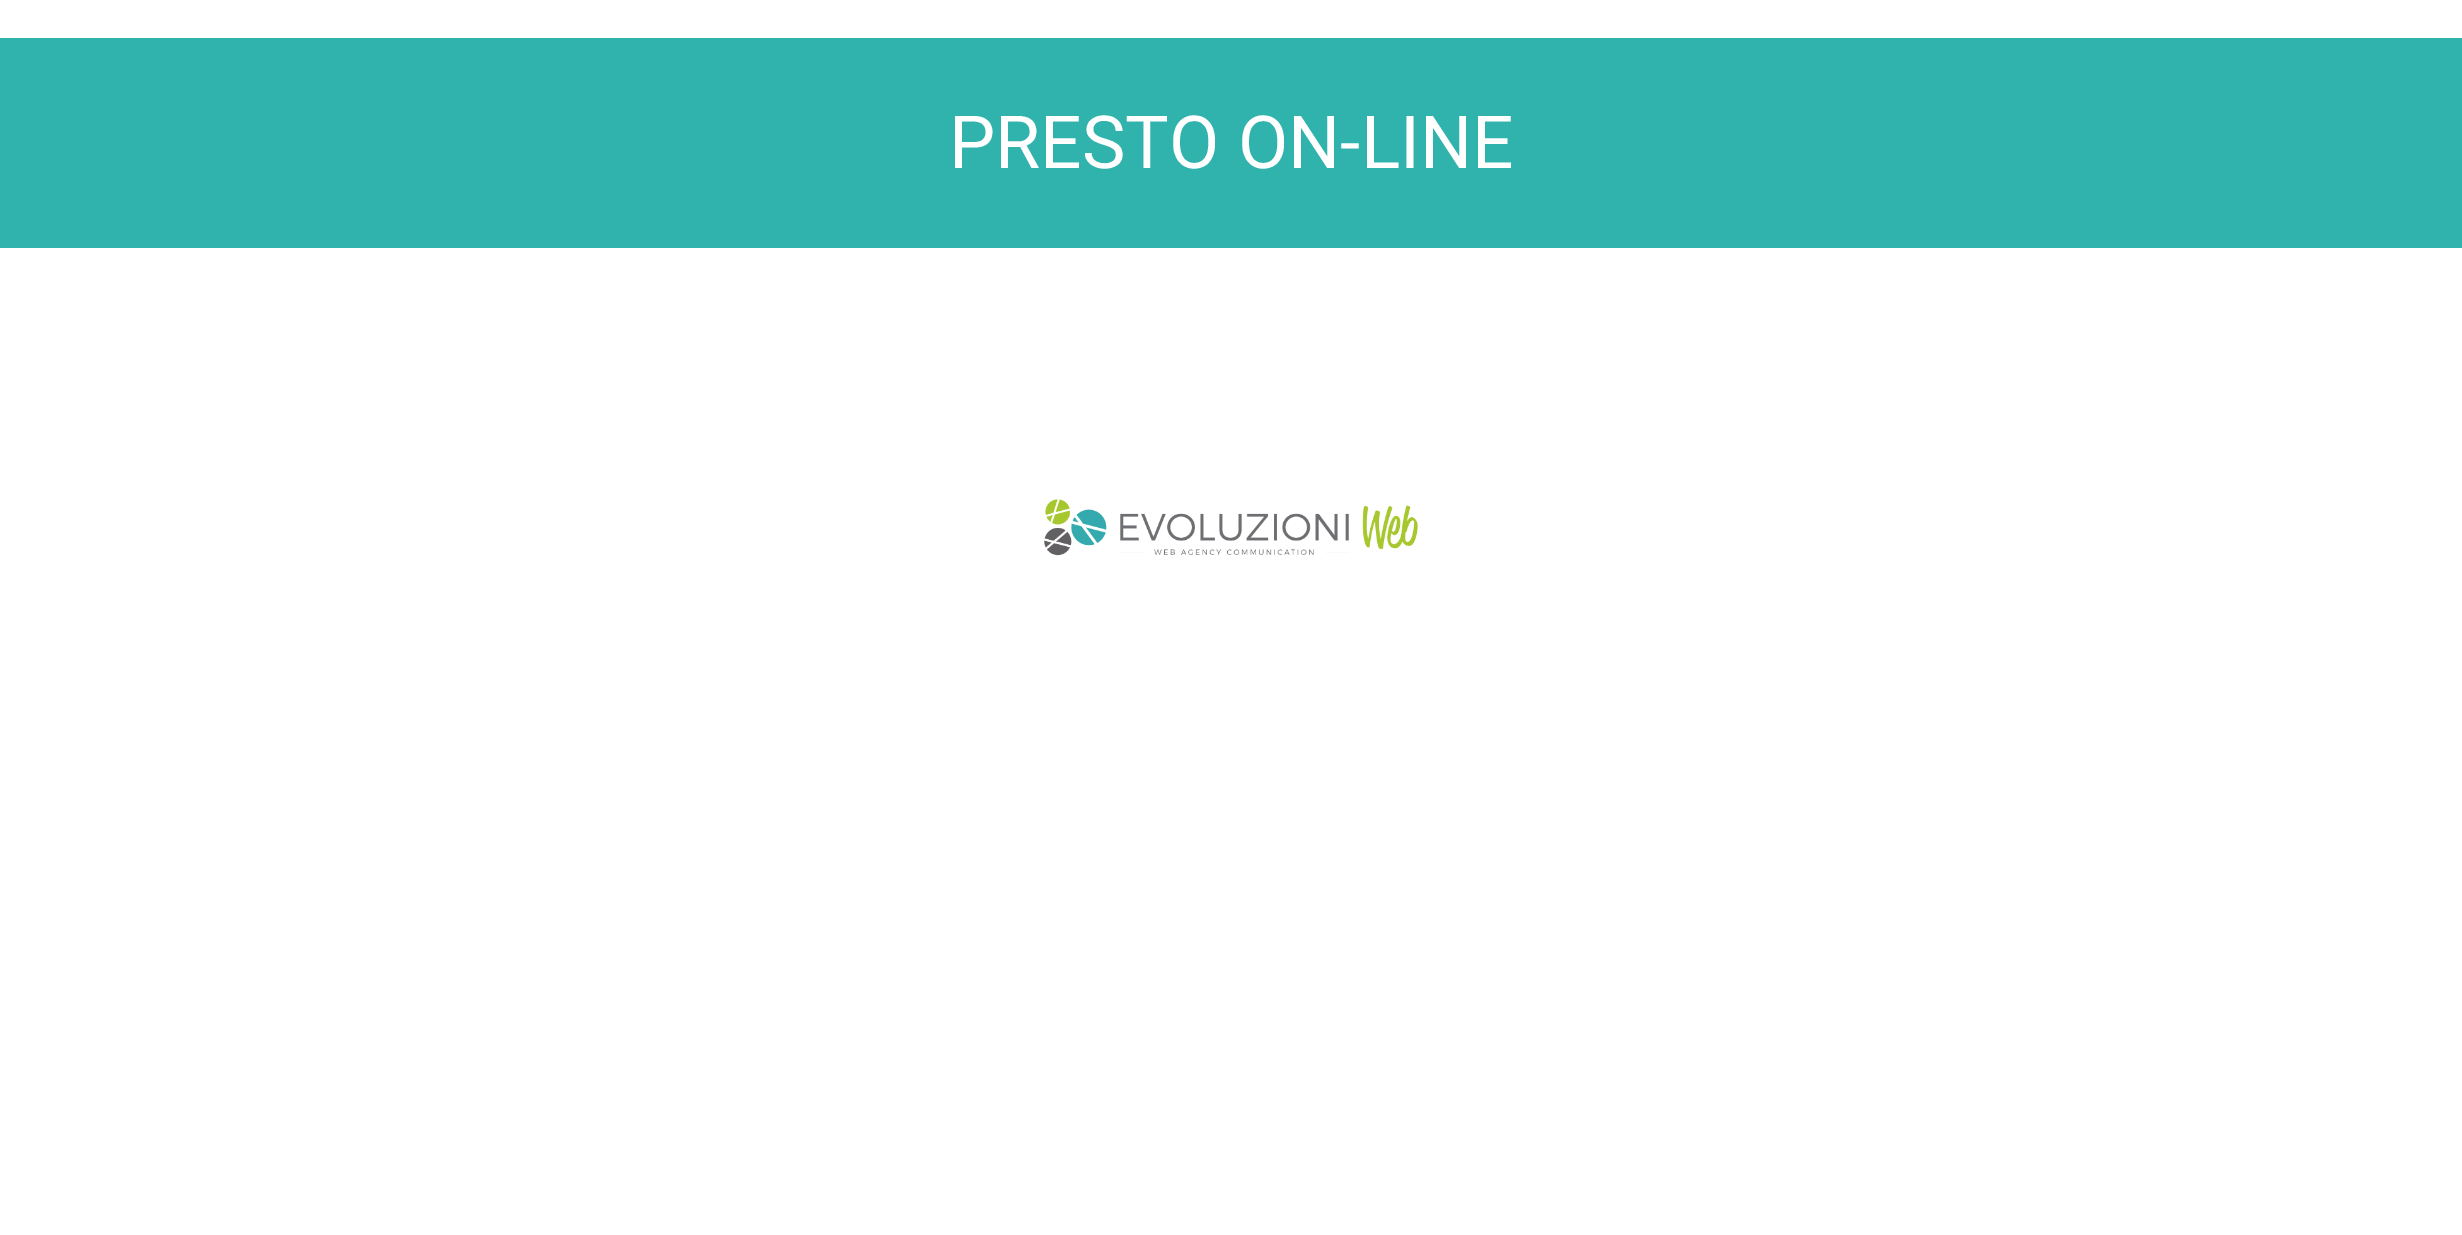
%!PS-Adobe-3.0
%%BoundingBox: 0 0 2462 1235
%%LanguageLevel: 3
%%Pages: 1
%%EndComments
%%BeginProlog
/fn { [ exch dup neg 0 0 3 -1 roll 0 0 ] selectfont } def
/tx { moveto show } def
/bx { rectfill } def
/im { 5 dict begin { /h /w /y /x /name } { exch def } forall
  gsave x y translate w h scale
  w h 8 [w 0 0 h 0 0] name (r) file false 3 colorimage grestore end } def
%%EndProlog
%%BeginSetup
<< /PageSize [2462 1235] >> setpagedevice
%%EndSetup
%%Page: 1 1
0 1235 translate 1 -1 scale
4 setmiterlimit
1 setgray
0 0 2462 1235 bx
0.188 0.702 0.678 setrgbcolor
0 38 2462 210 bx
/Roboto-Regular 73.25 fn
1 setgray
(PRESTO ON-LINE) 949 168 tx
(image0.raw) 1044 499 374 57 im
showpage
%%EOF
